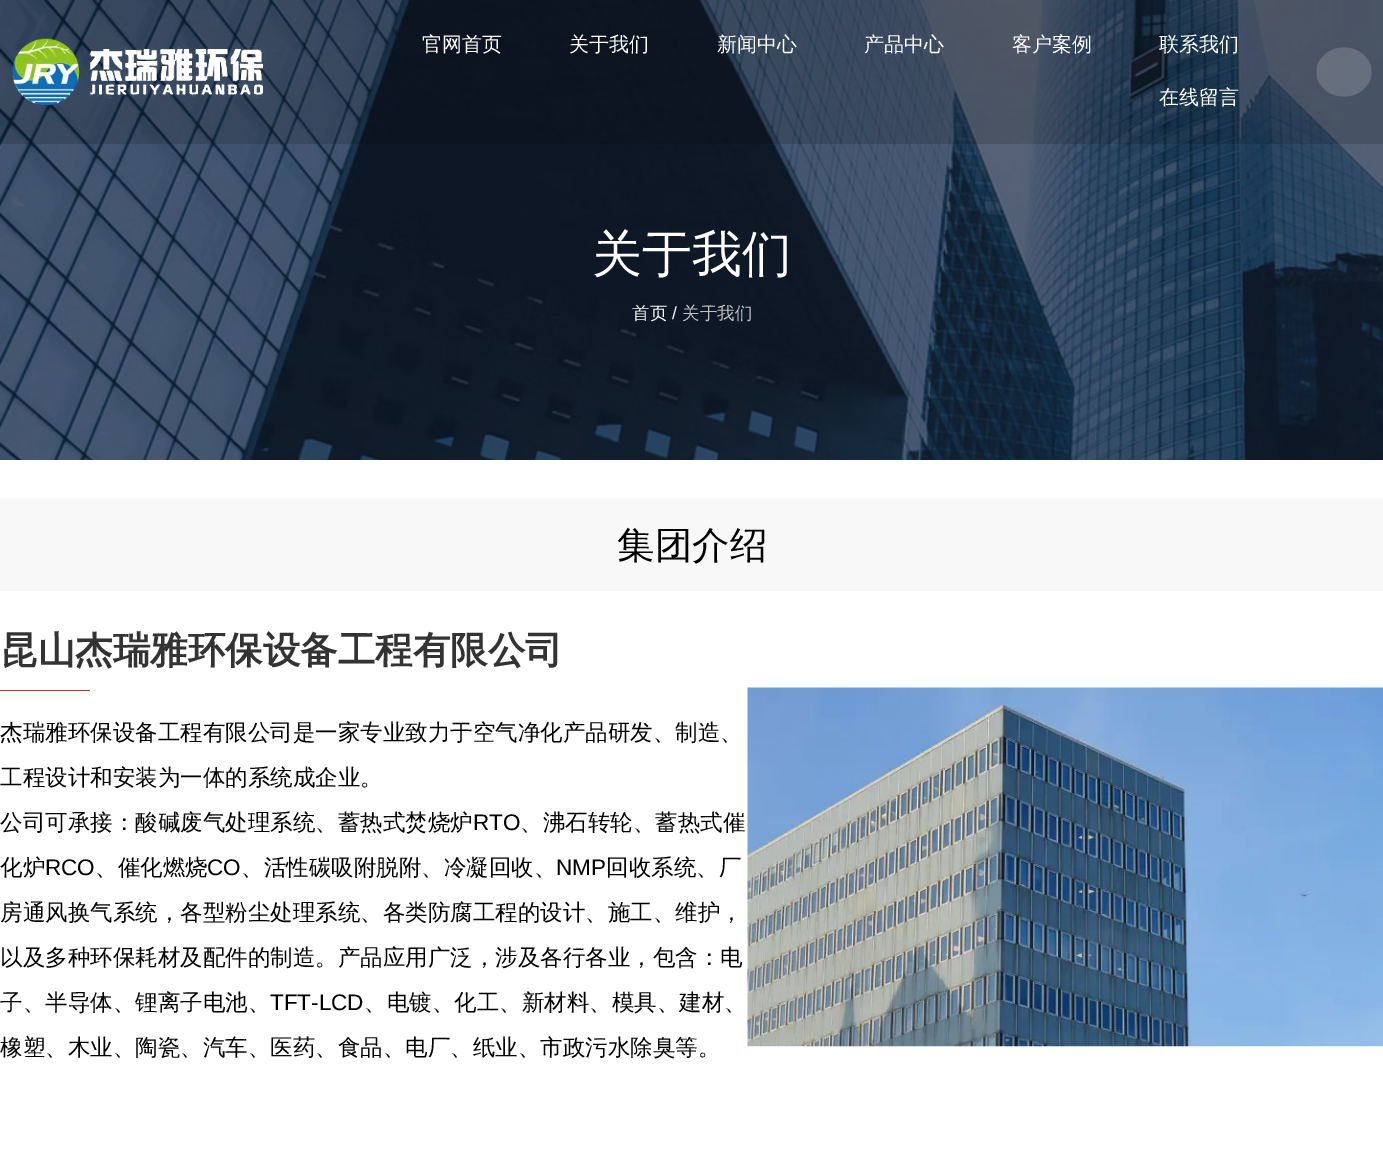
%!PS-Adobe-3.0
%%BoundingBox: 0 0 1383 1164
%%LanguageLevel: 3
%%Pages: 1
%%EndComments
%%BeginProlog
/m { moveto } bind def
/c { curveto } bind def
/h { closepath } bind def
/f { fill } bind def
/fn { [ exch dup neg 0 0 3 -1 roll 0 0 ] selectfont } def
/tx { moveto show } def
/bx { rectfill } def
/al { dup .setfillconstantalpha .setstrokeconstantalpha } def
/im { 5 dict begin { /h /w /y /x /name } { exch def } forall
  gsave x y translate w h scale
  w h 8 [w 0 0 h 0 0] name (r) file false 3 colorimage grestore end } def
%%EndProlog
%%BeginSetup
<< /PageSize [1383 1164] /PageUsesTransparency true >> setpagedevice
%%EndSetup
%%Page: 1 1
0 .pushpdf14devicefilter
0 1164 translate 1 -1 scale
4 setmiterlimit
1 setgray
0 0 1383 1164 bx
(image1.raw) 0 0 1383 460 im
0.14 al
0 setgray
0 0 1383 144 bx
1 al
(image0.raw) 12 38 251 67 im
/WenQuanYiZenHei-Medium 20 fn
1 setgray
(官网首页) 422 51 tx
(关于我们) 569 51 tx
(新闻中心) 717 51 tx
(产品中心) 864 51 tx
(客户案例) 1012 51 tx
(联系我们) 1159 51 tx
(在线留言) 1159 104 tx
0.16 al
1344 47.5 m 1359 47.5 1371.5 58.5 1371.5 72 c 1371.5 85.5 1359 96.5 1344 96.5 c 1329 96.5 1316.5 85.5 1316.5 72 c 1316.5 58.5 1329 47.5 1344 47.5 c h f
/WenQuanYiZenHei-Medium 50 fn
1 al
(关于我们) 592 271 tx
/WenQuanYiZenHei-Medium 17.5 fn
(首页) 632 319 tx
/LiberationSans-Regular 17.5 fn
(/) 672 319 tx
/WenQuanYiZenHei-Medium 17.5 fn
0.757 setgray
(关于我们) 682 319 tx
0.973 setgray
0 498 1383 93 bx
/WenQuanYiZenHei-Medium 37.5 fn
0 setgray
(集团介绍) 617 558 tx
/WenQuanYiZenHei-Bold 37.5 fn
0.2 setgray
(昆山杰瑞雅环保设备工程有限公司) 0 663 tx
0.757 0.184 0.169 setrgbcolor
0 690 90 1 bx
/WenQuanYiZenHei-Medium 22.5 fn
0 setgray
(杰瑞雅环保设备工程有限公司是一家专业致力于空气净化产品研发、制造、) 0 740 tx
(工程设计和安装为一体的系统成企业。) 0 785 tx
(公司可承接：酸碱废气处理系统、蓄热式焚烧炉) 0 830 tx
/LiberationSans-Regular 22.5 fn
(RTO) 473 830 tx
/WenQuanYiZenHei-Medium 22.5 fn
(、沸石转轮、蓄热式催) 520 830 tx
(化炉) 0 875 tx
/LiberationSans-Regular 22.5 fn
(RCO) 45 875 tx
/WenQuanYiZenHei-Medium 22.5 fn
(、催化燃烧) 95 875 tx
/LiberationSans-Regular 22.5 fn
(CO) 207 875 tx
/WenQuanYiZenHei-Medium 22.5 fn
(、活性碳吸附脱附、冷凝回收、) 241 875 tx
/LiberationSans-Regular 22.5 fn
(NMP) 556 875 tx
/WenQuanYiZenHei-Medium 22.5 fn
(回收系统、厂) 606 875 tx
(房通风换气系统，各型粉尘处理系统、各类防腐工程的设计、施工、维护，) 0 920 tx
(以及多种环保耗材及配件的制造。产品应用广泛，涉及各行各业，包含：电) 0 965 tx
(子、半导体、锂离子电池、) 0 1010 tx
/LiberationSans-Regular 22.5 fn
(TFT-LCD) 270 1010 tx
/WenQuanYiZenHei-Medium 22.5 fn
(、电镀、化工、新材料、模具、建材、) 364 1010 tx
(橡塑、木业、陶瓷、汽车、医药、食品、电厂、纸业、市政污水除臭等。) 0 1055 tx
(image2.raw) 747 687 636 360 im
.poppdf14devicefilter showpage
%%EOF
